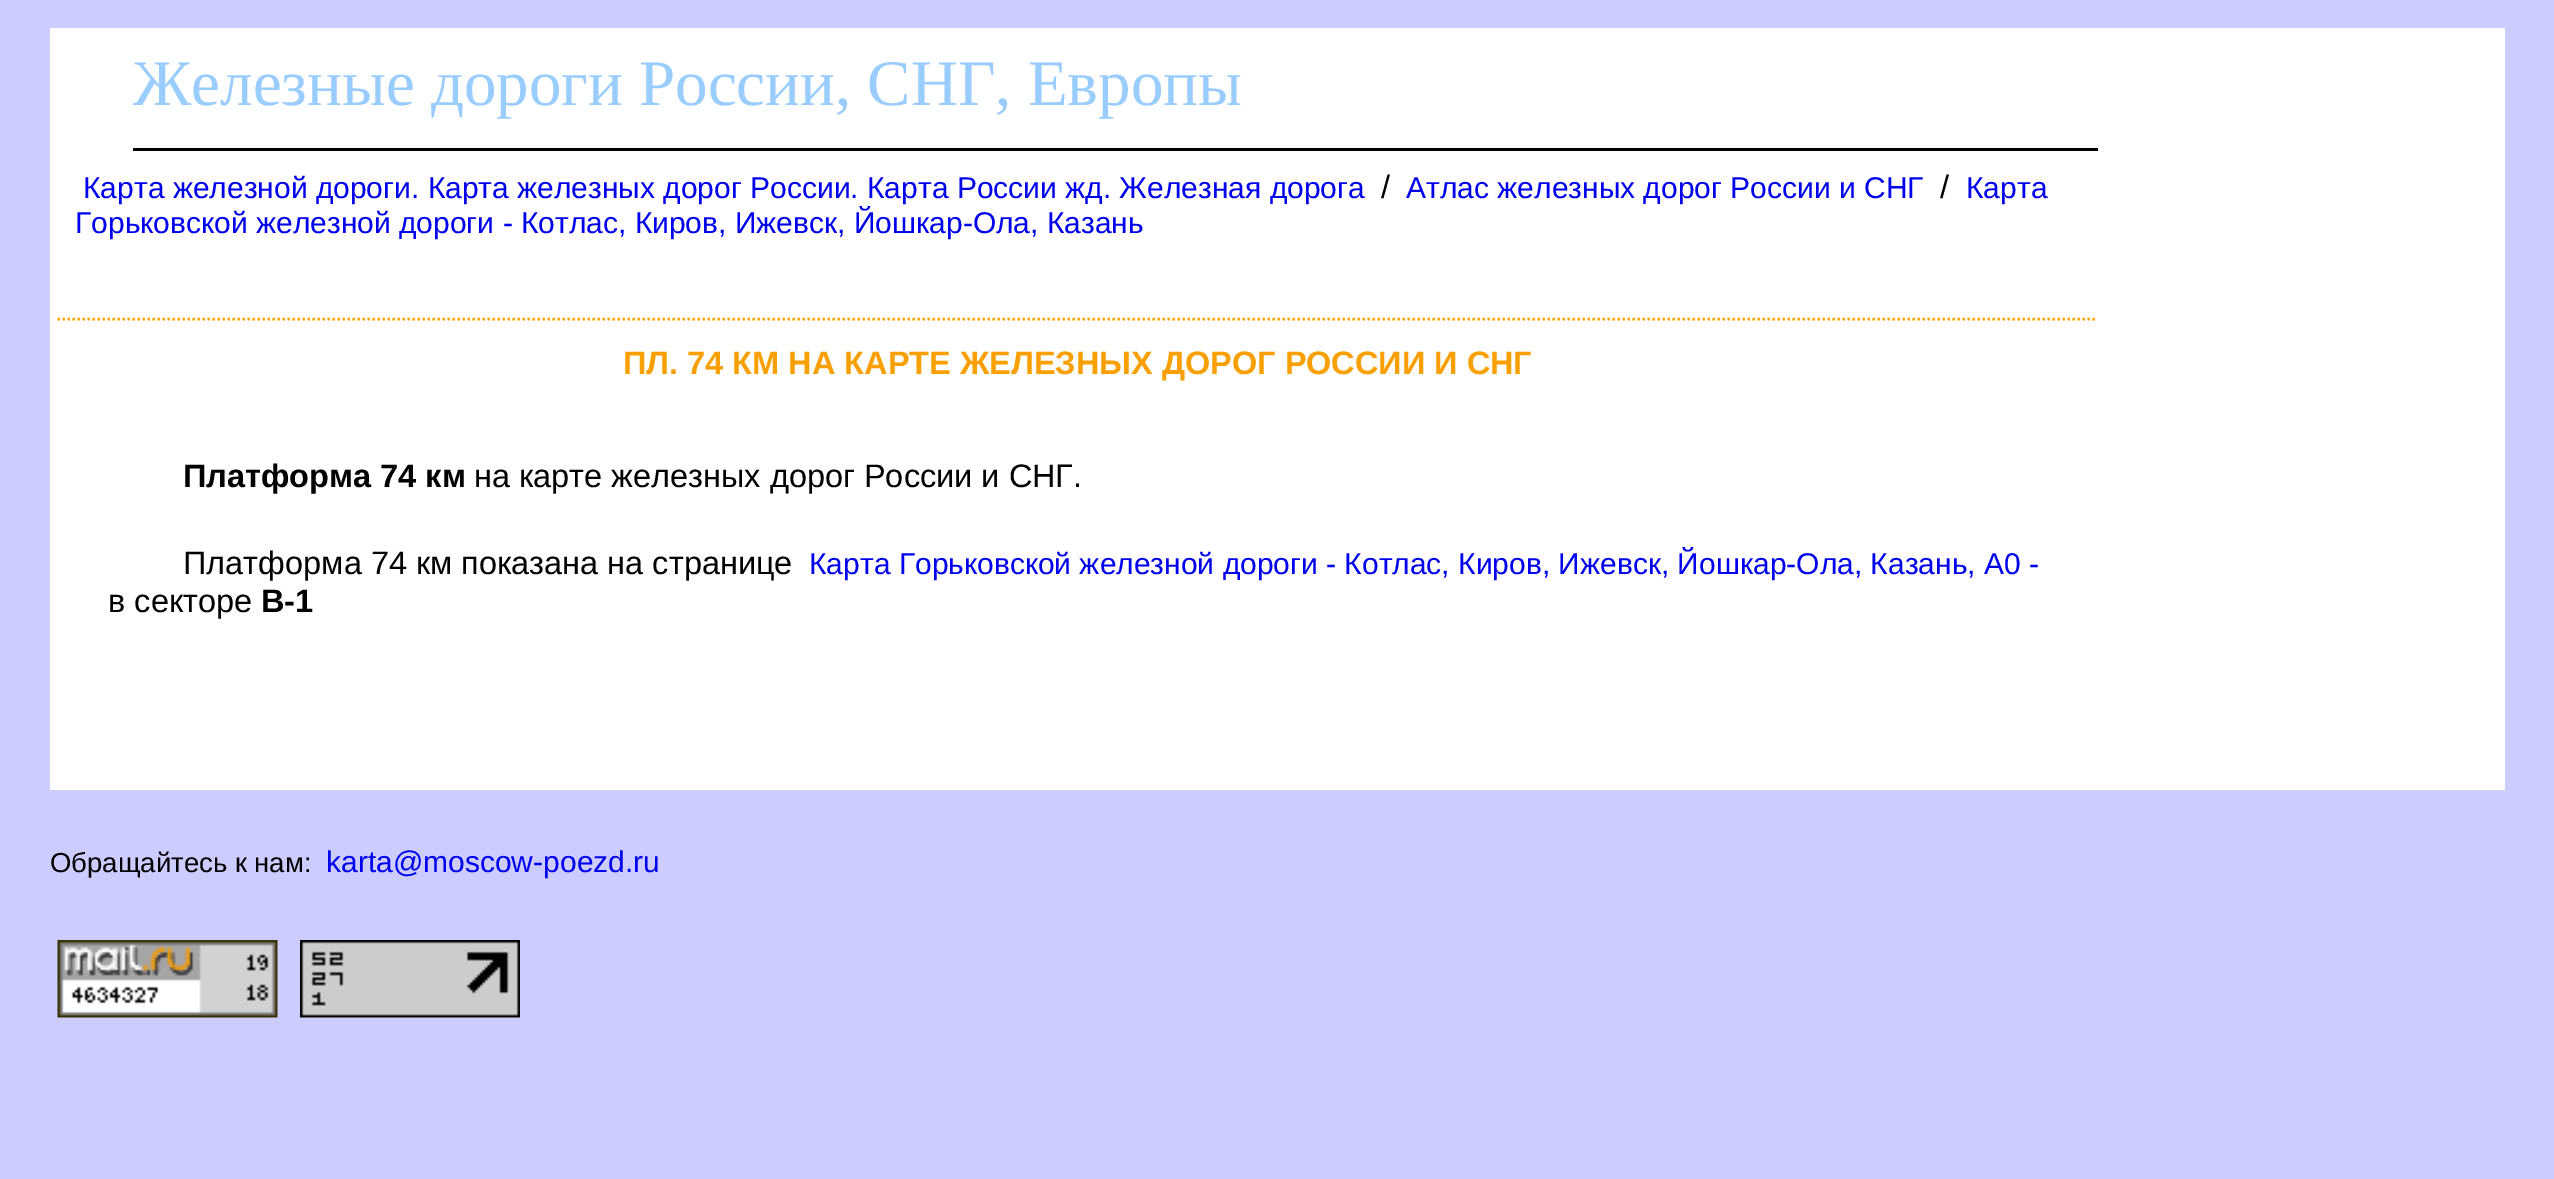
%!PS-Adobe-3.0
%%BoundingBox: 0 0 2554 1179
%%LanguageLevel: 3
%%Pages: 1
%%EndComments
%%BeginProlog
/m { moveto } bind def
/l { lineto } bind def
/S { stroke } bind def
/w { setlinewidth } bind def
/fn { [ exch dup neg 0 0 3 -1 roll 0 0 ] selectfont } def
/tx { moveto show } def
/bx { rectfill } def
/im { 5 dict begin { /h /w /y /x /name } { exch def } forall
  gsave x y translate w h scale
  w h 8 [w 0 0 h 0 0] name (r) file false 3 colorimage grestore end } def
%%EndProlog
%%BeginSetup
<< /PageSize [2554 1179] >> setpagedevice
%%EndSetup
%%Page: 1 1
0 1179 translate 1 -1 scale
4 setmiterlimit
0.8 0.8 1 setrgbcolor
0 0 2554 1179 bx
1 setgray
50 28 2455 762 bx
0 setgray
133 148 1965 3 bx
/LiberationSerif-Regular 65 fn
0.6 0.8 1 setrgbcolor
(Железные дороги России, СНГ, Европы) 133 105 tx
/LiberationSans-Regular 30 fn
0 0 0.933 setrgbcolor
(Карта железной дороги. Карта железных дорог России. Карта России жд. Железная дорога) 83 198 tx
/LiberationSans-Regular 32.5 fn
0 setgray
(/) 1381 198 tx
/LiberationSans-Regular 30 fn
0 0 0.933 setrgbcolor
(Атлас железных дорог России и СНГ) 1406 198 tx
/LiberationSans-Regular 32.5 fn
0 setgray
(/) 1940 198 tx
/LiberationSans-Regular 30 fn
0 0 0.933 setrgbcolor
(Карта) 1966 198 tx
(Горьковской железной дороги - Котлас, Киров, Ижевск, Йошкар-Ола, Казань) 75 233 tx
1 0.647 0 setrgbcolor
2.5 w
[2.5 2.5] 0 setdash
57.5 319 m 2097.5 319 l S
/LiberationSans-Bold 32.5 fn
0.976 0.627 0 setrgbcolor
(ПЛ. 74 КМ НА КАРТЕ ЖЕЛЕЗНЫХ ДОРОГ РОССИИ И СНГ) 623 374 tx
0 setgray
(Платформа 74 км) 183 487 tx
/LiberationSans-Regular 32.5 fn
(на карте железных дорог России и СНГ.) 474 487 tx
(Платформа 74 км показана на странице) 183 574 tx
/LiberationSans-Regular 30 fn
0 0 0.933 setrgbcolor
(Карта Горьковской железной дороги - Котлас, Киров, Ижевск, Йошкар-Ола, Казань, A0 -) 809 574 tx
/LiberationSans-Regular 32.5 fn
0 setgray
(в секторе) 108 612 tx
/LiberationSans-Bold 32.5 fn
(В-1) 261 612 tx
/LiberationSans-Regular 27.5 fn
(Обращайтесь к нам:) 50 872 tx
/LiberationSans-Regular 30 fn
0 0 0.933 setrgbcolor
(karta@moscow-poezd.ru) 326 872 tx
(image0.raw) 57 940 221 78 im
(image1.raw) 300 940 220 78 im
showpage
%%EOF
